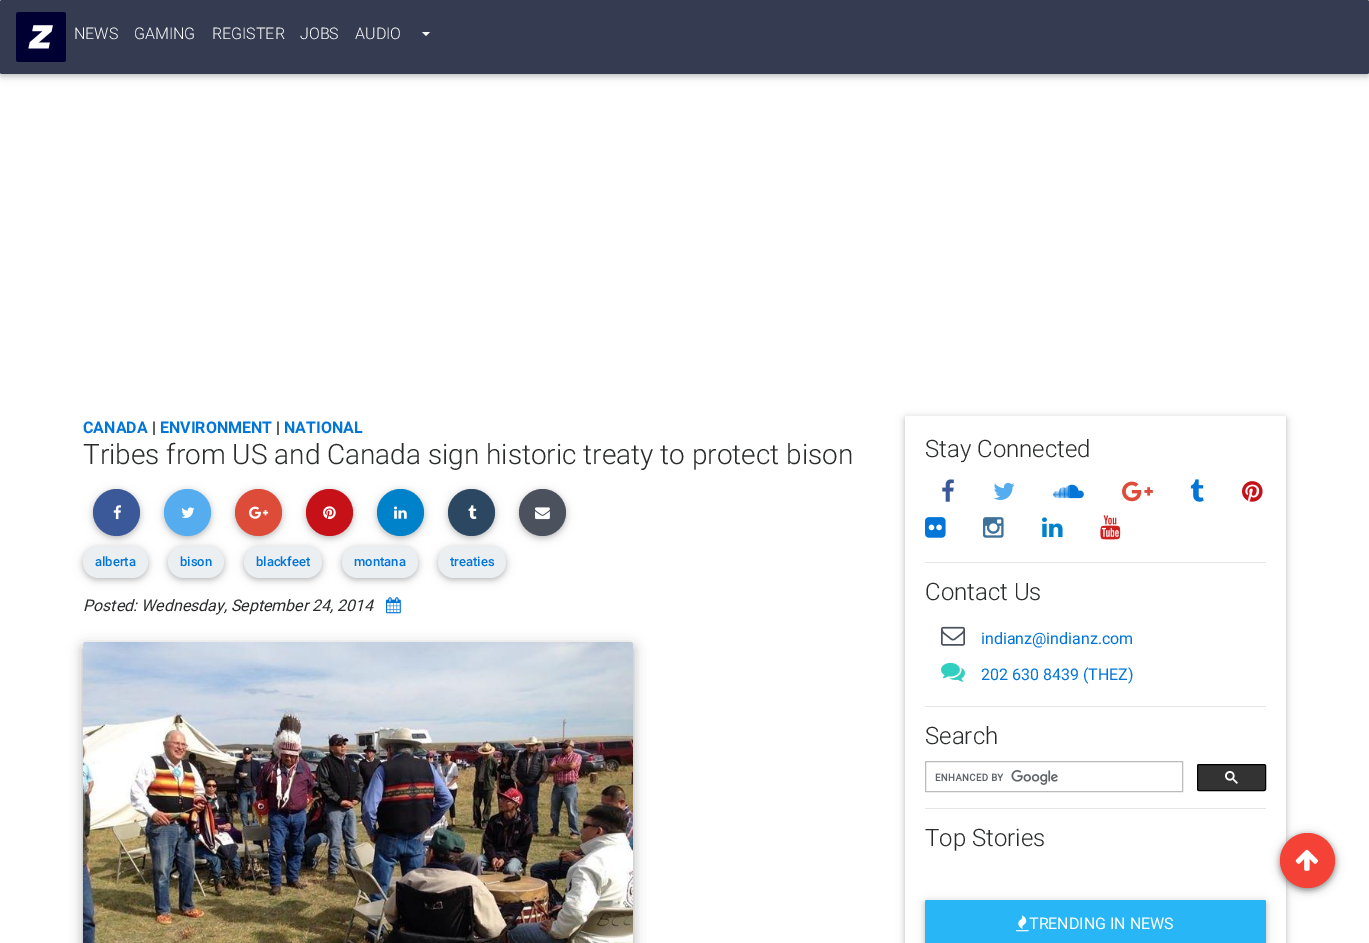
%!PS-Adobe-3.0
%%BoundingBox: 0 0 1369 943
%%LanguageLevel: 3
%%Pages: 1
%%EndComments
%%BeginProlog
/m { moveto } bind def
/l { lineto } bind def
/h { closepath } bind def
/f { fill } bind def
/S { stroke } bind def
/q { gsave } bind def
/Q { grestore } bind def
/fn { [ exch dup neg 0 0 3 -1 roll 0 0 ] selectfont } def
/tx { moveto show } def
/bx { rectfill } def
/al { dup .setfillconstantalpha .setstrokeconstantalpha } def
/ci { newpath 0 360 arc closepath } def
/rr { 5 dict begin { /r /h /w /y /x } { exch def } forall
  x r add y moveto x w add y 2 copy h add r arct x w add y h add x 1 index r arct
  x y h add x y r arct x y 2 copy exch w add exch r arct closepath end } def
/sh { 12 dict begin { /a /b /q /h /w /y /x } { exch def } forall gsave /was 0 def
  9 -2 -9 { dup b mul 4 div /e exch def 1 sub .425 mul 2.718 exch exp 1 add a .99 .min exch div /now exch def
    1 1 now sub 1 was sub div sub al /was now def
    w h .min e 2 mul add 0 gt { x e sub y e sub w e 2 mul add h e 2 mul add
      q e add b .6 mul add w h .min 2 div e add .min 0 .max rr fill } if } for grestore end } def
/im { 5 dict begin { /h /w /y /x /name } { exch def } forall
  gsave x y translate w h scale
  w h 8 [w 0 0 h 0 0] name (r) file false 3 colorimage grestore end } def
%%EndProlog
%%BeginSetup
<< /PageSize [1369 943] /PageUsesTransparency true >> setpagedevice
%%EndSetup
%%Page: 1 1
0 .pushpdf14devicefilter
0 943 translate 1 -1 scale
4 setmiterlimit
1 setgray
0 0 1369 943 bx
0 setgray
0 2 1369 74 2 5 0.12 sh
0 2 1369 74 2 2.5 0.16 sh
0.208 0.231 0.314 setrgbcolor
0 0 1369 74 2 rr f
(image0.raw) 16 12 50 50 im
/Roboto-Light 16 fn
1 setgray
(NEWS) 74 39 tx
(GAMING) 134 39 tx
(REGISTER) 212 39 tx
(JOBS) 300 39 tx
(AUDIO) 355 39 tx
422 32 m 430 32 l 426 36 l h f
/Roboto-Bold 16 fn
0.008 0.459 0.847 setrgbcolor
(CANADA) 83 433 tx
0.161 0.169 0.173 setrgbcolor
(|) 152 433 tx
0.008 0.459 0.847 setrgbcolor
(ENVIRONMENT) 160 433 tx
0.161 0.169 0.173 setrgbcolor
(|) 276 433 tx
0.008 0.459 0.847 setrgbcolor
(NATIONAL) 284 433 tx
/Roboto-Light 28 fn
0.161 0.169 0.173 setrgbcolor
(Tribes from US and Canada sign historic treaty to protect bison) 83 464 tx
0 setgray
83 548 65 32 16 5 0.12 sh
83 548 65 32 16 2.5 0.16 sh
0.925 0.937 0.945 setrgbcolor
83 546 65 32 16 rr f
0 setgray
93 491 47 47 23.5 5 0.12 sh
93 491 47 47 23.5 2.5 0.16 sh
0.231 0.349 0.596 setrgbcolor
116.5 512.5 23.5 ci f
(image1.raw) 113 505 8 15 im
0 setgray
168 548 56 32 16 5 0.12 sh
168 548 56 32 16 2.5 0.16 sh
0.925 0.937 0.945 setrgbcolor
168 546 56 32 16 rr f
0 setgray
164 491 47 47 23.5 5 0.12 sh
164 491 47 47 23.5 2.5 0.16 sh
0.333 0.675 0.933 setrgbcolor
187.5 512.5 23.5 ci f
(image2.raw) 181 507 14 11 im
0 setgray
244 548 78 32 16 5 0.12 sh
244 548 78 32 16 2.5 0.16 sh
0.925 0.937 0.945 setrgbcolor
244 546 78 32 16 rr f
0 setgray
235 491 47 47 23.5 5 0.12 sh
235 491 47 47 23.5 2.5 0.16 sh
0.867 0.294 0.224 setrgbcolor
258.5 512.5 23.5 ci f
(image3.raw) 249 506 20 13 im
0 setgray
342 548 76 32 16 5 0.12 sh
342 548 76 32 16 2.5 0.16 sh
0.925 0.937 0.945 setrgbcolor
342 546 76 32 16 rr f
0 setgray
306 491 47 47 23.5 5 0.12 sh
306 491 47 47 23.5 2.5 0.16 sh
0.776 0.067 0.094 setrgbcolor
329.5 512.5 23.5 ci f
(image4.raw) 323 506 13 14 im
0 setgray
438 548 68 32 16 5 0.12 sh
438 548 68 32 16 2.5 0.16 sh
0.925 0.937 0.945 setrgbcolor
438 546 68 32 16 rr f
0 setgray
377 491 47 47 23.5 5 0.12 sh
377 491 47 47 23.5 2.5 0.16 sh
0 0.51 0.792 setrgbcolor
400.5 512.5 23.5 ci f
(image5.raw) 394 506 13 13 im
0 setgray
448 491 47 47 23.5 5 0.12 sh
448 491 47 47 23.5 2.5 0.16 sh
0.173 0.278 0.384 setrgbcolor
471.5 512.5 23.5 ci f
(image6.raw) 468 505 9 14 im
0 setgray
519 491 47 47 23.5 5 0.12 sh
519 491 47 47 23.5 2.5 0.16 sh
0.294 0.318 0.365 setrgbcolor
542.5 512.5 23.5 ci f
(image7.raw) 535 507 15 13 im
/Roboto-Medium 13 fn
0.008 0.459 0.847 setrgbcolor
(alberta) 95 566 tx
(bison) 180 566 tx
(blackfeet) 256 566 tx
(montana) 354 566 tx
(treaties) 450 566 tx
/Roboto-Italic 16 fn
0.161 0.169 0.173 setrgbcolor
(Posted: Wednesday, September 24, 2014) 83 611 tx
(image8.raw) 386 597 15 17 im
0 setgray
83 646 550 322 2 7.5 0.15 sh
83 647 550 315 2 5.5 0.18 sh
(image9.raw) 83 642 550 301 im
905 418 381 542 2 5 0.12 sh
905 418 381 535 2 2.5 0.16 sh
1 setgray
905 416 381 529 2 rr f
/Roboto-Light 24 fn
0.161 0.169 0.173 setrgbcolor
(Stay Connected) 925 457 tx
(image10.raw) 942 479 12 23 im
(image11.raw) 993 482 22 18 im
(image12.raw) 1053 484 31 15 im
(image13.raw) 1122 481 31 21 im
(image14.raw) 1190 479 14 23 im
(image15.raw) 1242 481 21 21 im
(image16.raw) 925 517 21 21 im
(image17.raw) 983 517 21 21 im
(image18.raw) 1042 517 21 21 im
(image19.raw) 1100 515 21 25 im
0.902 setgray
925 562 341 1 bx
0.161 0.169 0.173 setrgbcolor
(Contact Us) 925 600 tx
(image20.raw) 941 626 24 20 im
/Roboto-Regular 16 fn
0.008 0.459 0.847 setrgbcolor
(indianz@indianz.com) 981 644 tx
(image21.raw) 941 662 24 20 im
(202 630 8439 \(THEZ\)) 981 680 tx
0.902 setgray
925 706 341 1 bx
/Roboto-Light 24 fn
0.161 0.169 0.173 setrgbcolor
(Search) 925 744 tx
0.733 setgray
925.5 761.5 257 30 rectstroke
(image22.raw) 935 770 123 15 im
0.2 setgray
1197.5 764.5 68 26 1.5 rr q f Q
0 setgray
S
(image23.raw) 1225 771 13 13 im
0.902 setgray
925 808 341 1 bx
0.161 0.169 0.173 setrgbcolor
(Top Stories) 925 846 tx
0 setgray
925 902 341 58 2 5 0.12 sh
925 902 341 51 2 2.5 0.16 sh
0.161 0.714 0.965 setrgbcolor
925 900 341 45 2 rr f
(image24.raw) 1016 915 13 17 im
/Roboto-Regular 16 fn
1 setgray
(TRENDING IN NEWS) 1029 929 tx
0 setgray
1280 835 55 55 27.5 5 0.12 sh
1280 835 55 55 27.5 2.5 0.16 sh
1280 835 55 55 27.5 5 0.12 sh
1280 835 55 55 27.5 2.5 0.16 sh
0.957 0.263 0.212 setrgbcolor
1307.5 860.5 27.5 ci f
(image25.raw) 1295 849 23 22 im
.poppdf14devicefilter showpage
%%EOF
